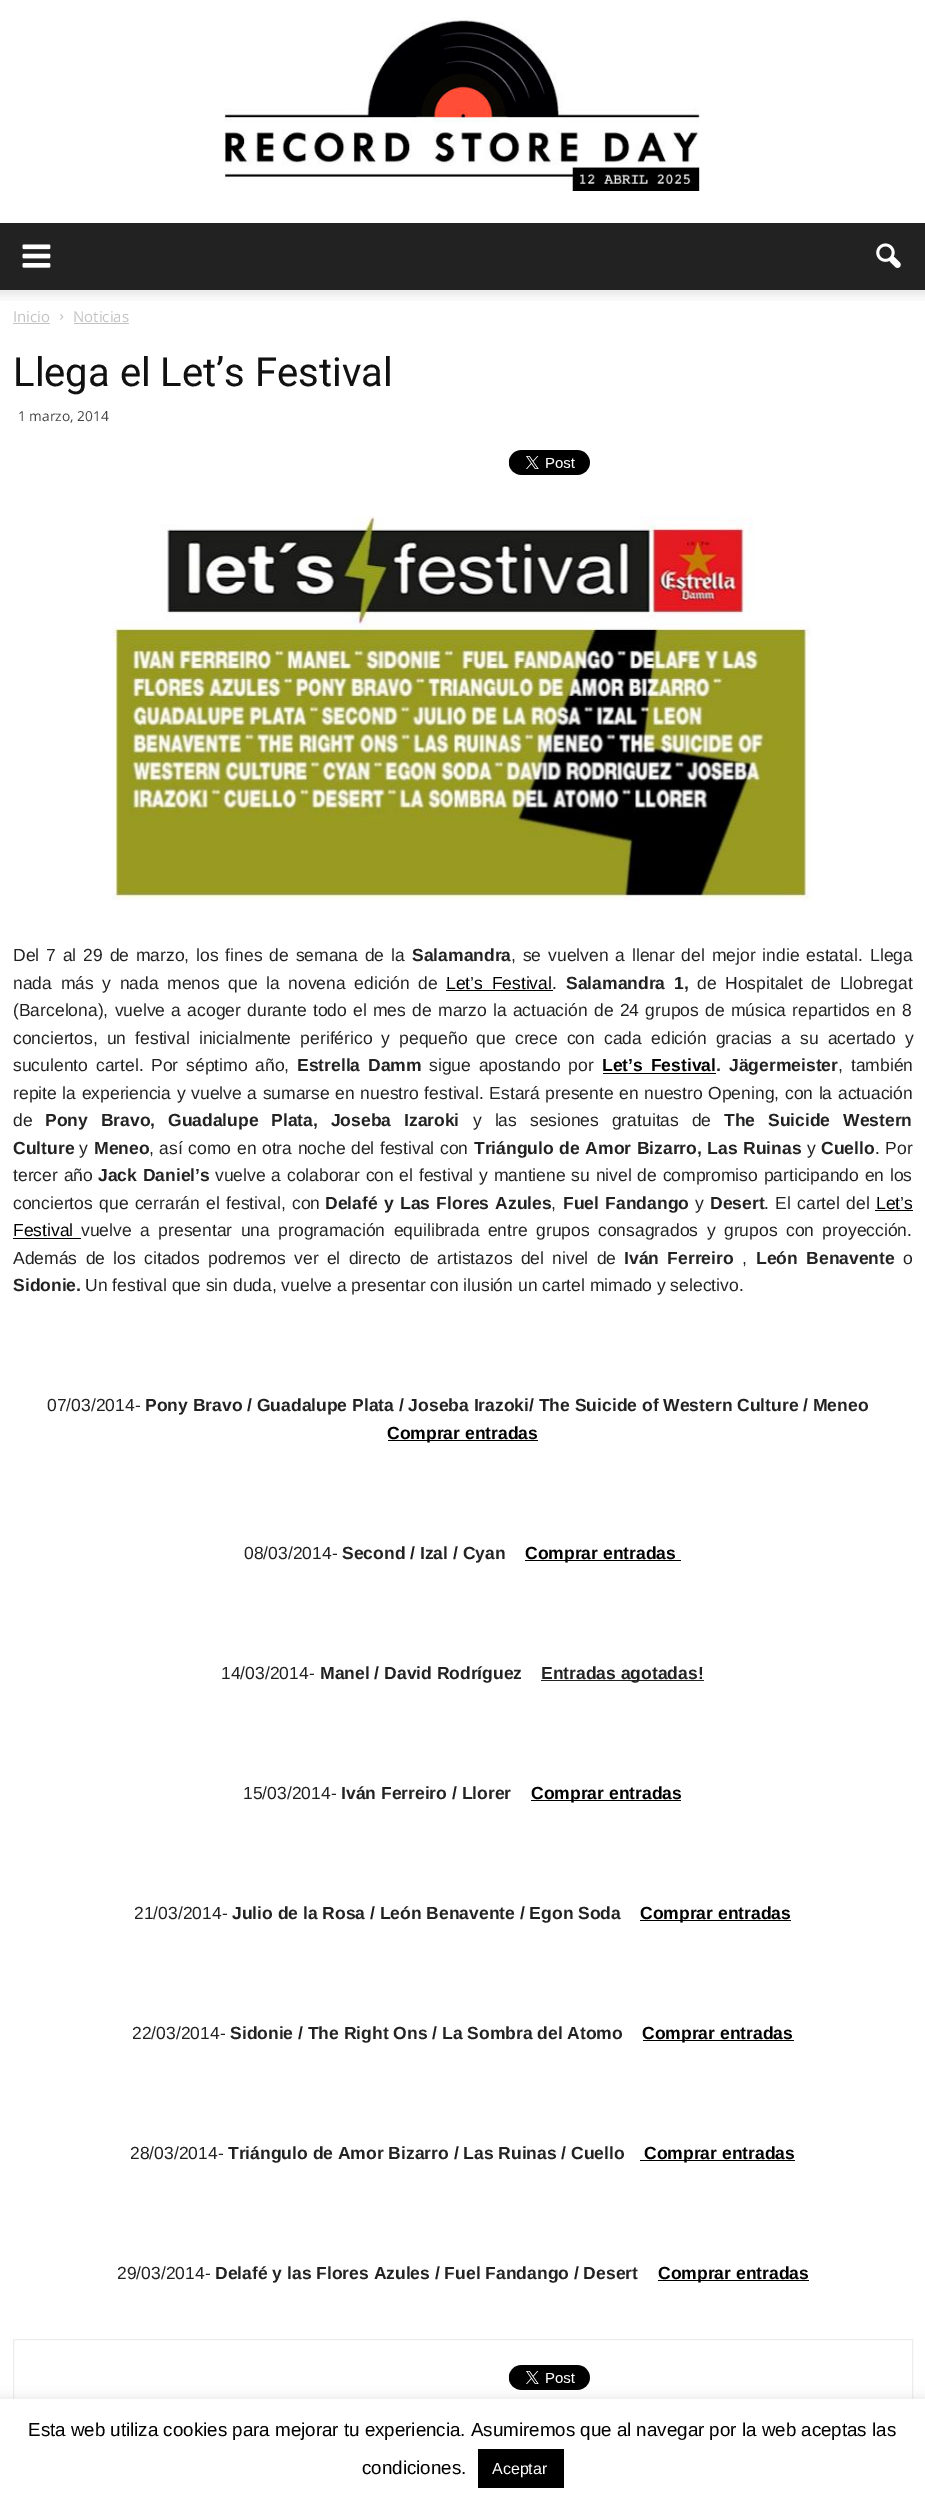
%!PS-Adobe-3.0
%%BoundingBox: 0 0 925 2502
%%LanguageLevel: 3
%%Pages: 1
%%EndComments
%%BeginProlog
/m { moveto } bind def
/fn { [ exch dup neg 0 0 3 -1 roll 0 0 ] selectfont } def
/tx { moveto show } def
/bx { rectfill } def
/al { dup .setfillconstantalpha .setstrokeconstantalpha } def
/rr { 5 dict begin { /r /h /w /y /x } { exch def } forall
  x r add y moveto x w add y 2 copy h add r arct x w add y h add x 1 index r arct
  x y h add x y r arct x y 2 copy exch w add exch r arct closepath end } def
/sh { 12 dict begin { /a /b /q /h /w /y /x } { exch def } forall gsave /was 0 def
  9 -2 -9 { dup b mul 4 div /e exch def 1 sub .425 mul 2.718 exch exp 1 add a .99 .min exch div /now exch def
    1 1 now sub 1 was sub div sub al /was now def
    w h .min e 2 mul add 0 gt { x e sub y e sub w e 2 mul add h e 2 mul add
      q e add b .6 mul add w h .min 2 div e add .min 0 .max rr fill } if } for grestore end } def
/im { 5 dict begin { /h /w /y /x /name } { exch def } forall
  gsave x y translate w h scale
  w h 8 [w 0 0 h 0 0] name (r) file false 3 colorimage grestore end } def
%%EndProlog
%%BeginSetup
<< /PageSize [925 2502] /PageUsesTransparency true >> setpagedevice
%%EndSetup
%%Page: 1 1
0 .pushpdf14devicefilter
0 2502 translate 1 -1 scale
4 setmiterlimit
1 setgray
0 0 925 2502 bx
(image0.raw) 224 17 476 174 im
0.133 setgray
0 223 925 67 bx
(image1.raw) 22 244 29 24 im
(image2.raw) 876 243 25 25 im
(image3.raw) 0 290 925 11 im
/OpenSans-Regular 15 fn
0.765 setgray
(Inicio) 13 322 tx
13 323 37 1 bx
(image4.raw) 60 314 4 6 im
(Noticias) 73 322 tx
74 323 55 1 bx
/Roboto-Regular 40 fn
0.067 setgray
(Llega el Let’s Festival) 13 386 tx
/OpenSans-Regular 13.75 fn
0.267 setgray
(1 marzo, 2014) 18 421 tx
(image5.raw) 508 450 82 25 im
(image6.raw) 112 516 701 385 im
/LiberationSans-Regular 17.5 fn
0.133 setgray
13 961 m 2 0 32 (Del 7 al 29 de marzo, los fines de semana de la) widthshow
/LiberationSans-Bold 17.5 fn
(Salamandra) 412 961 tx
/LiberationSans-Regular 17.5 fn
511 961 m 2 0 32 (, se vuelven a llenar del mejor indie estatal.) widthshow
(Llega) 870 961 tx
13 989 m 3.75 0 32 (nada más y nada menos que la novena edición de) widthshow
0 setgray
446 989 m 3.75 0 32 (Let’s Festival) widthshow
446 990 107 1 bx
0.133 setgray
(.) 552 989 tx
/LiberationSans-Bold 17.5 fn
566 989 m 3.75 0 32 (Salamandra 1,) widthshow
/LiberationSans-Regular 17.5 fn
697 989 m 3.75 0 32 (de Hospitalet de Llobregat) widthshow
13 1016 m 1.4 0 32 (\(Barcelona\), vuelve a acoger durante todo el mes de marzo la actuación de 24 grupos de música repartidos en 8) widthshow
13 1044 m 4.25 0 32 (conciertos, un festival inicialmente periférico y pequeño que crece con cada edición gracias a su acertado y) widthshow
13 1071 m 3 0 32 (suculento cartel.) widthshow
151 1071 m 3 0 32 (Por séptimo año,) widthshow
/LiberationSans-Bold 17.5 fn
297 1071 m 3 0 32 (Estrella Damm) widthshow
/LiberationSans-Regular 17.5 fn
429 1071 m 3 0 32 (sigue apostando por) widthshow
/LiberationSans-Bold 17.5 fn
0 setgray
602 1071 m 3 0 32 (Let’s Festival) widthshow
0.133 setgray
(.) 716 1071 tx
0 setgray
603 1073 113 1 bx
0.133 setgray
(Jägermeister) 729 1071 tx
/LiberationSans-Regular 17.5 fn
838 1071 m 3 0 32 (, también) widthshow
13 1099 m 0.75 0 32 (repite la experiencia y vuelve a sumarse en nuestro festival. Estará presente en nuestro Opening, con la actuación) widthshow
(de) 13 1126 tx
/LiberationSans-Bold 17.5 fn
45 1126 m 8 0 32 (Pony Bravo, Guadalupe Plata, Joseba Izaroki) widthshow
/LiberationSans-Regular 17.5 fn
473 1126 m 8 0 32 (y las sesiones gratuitas de) widthshow
/LiberationSans-Bold 17.5 fn
724 1126 m 8 0 32 (The Suicide Western) widthshow
(Culture) 13 1154 tx
/LiberationSans-Regular 17.5 fn
(y) 79 1154 tx
/LiberationSans-Bold 17.5 fn
(Meneo) 94 1154 tx
/LiberationSans-Regular 17.5 fn
149 1154 m 0.75 0 32 (, así como en otra noche del festival con) widthshow
/LiberationSans-Bold 17.5 fn
474 1154 m 0.75 0 32 (Triángulo de Amor Bizarro, Las Ruinas) widthshow
/LiberationSans-Regular 17.5 fn
(y) 807 1154 tx
/LiberationSans-Bold 17.5 fn
(Cuello) 821 1154 tx
/LiberationSans-Regular 17.5 fn
875 1154 m 0.75 0 32 (. Por) widthshow
13 1181 m 1 0 32 (tercer año) widthshow
/LiberationSans-Bold 17.5 fn
98 1181 m 1 0 32 (Jack Daniel’s) widthshow
/LiberationSans-Regular 17.5 fn
215 1181 m 0.9 0 32 (vuelve a colaborar con el festival y mantiene su nivel de compromiso participando en los) widthshow
13 1209 m 1.5 0 32 (conciertos que cerrarán el festival, con) widthshow
/LiberationSans-Bold 17.5 fn
325 1209 m 1.5 0 32 (Delafé y Las Flores Azules) widthshow
/LiberationSans-Regular 17.5 fn
(,) 551 1209 tx
/LiberationSans-Bold 17.5 fn
563 1209 m 1.5 0 32 (Fuel Fandango) widthshow
/LiberationSans-Regular 17.5 fn
(y) 695 1209 tx
/LiberationSans-Bold 17.5 fn
(Desert) 710 1209 tx
/LiberationSans-Regular 17.5 fn
764 1209 m 1.5 0 32 (. El cartel del) widthshow
0 setgray
(Let’s) 876 1209 tx
875 1210 38 1 bx
(Festival) 13 1236 tx
13 1238 68 1 bx
0.133 setgray
81 1236 m 3.6 0 32 (vuelve a presentar una programación equilibrada entre grupos consagrados y grupos con proyección.) widthshow
13 1264 m 3.5 0 32 (Además de los citados podremos ver el directo de artistazos del nivel de) widthshow
/LiberationSans-Bold 17.5 fn
624 1264 m 3.5 0 32 (Iván Ferreiro) widthshow
/LiberationSans-Regular 17.5 fn
(,) 742 1264 tx
/LiberationSans-Bold 17.5 fn
756 1264 m 3.5 0 32 (León Benavente) widthshow
/LiberationSans-Regular 17.5 fn
(o) 903 1264 tx
/LiberationSans-Bold 17.5 fn
(Sidonie.) 13 1291 tx
/LiberationSans-Regular 17.5 fn
(Un festival que sin duda, vuelve a presentar con ilusión un cartel mimado y selectivo.) 85 1291 tx
(07/03/2014-) 47 1411 tx
/LiberationSans-Bold 17.5 fn
(Pony Bravo / Guadalupe Plata / Joseba Irazoki/ The Suicide of Western Culture / Meneo) 145 1411 tx
0 setgray
388 1440 150 1 bx
(Comprar entradas) 387 1439 tx
/LiberationSans-Regular 17.5 fn
0.133 setgray
(08/03/2014-) 244 1559 tx
/LiberationSans-Bold 17.5 fn
(Second / Izal / Cyan) 342 1559 tx
0 setgray
525 1560 156 1 bx
(Comprar entradas) 525 1559 tx
/LiberationSans-Regular 17.5 fn
0.133 setgray
(14/03/2014-) 221 1679 tx
/LiberationSans-Bold 17.5 fn
(Manel / David Rodríguez) 320 1679 tx
541 1680 163 1 bx
(Entradas agotadas!) 541 1679 tx
/LiberationSans-Regular 17.5 fn
(15/03/2014-) 243 1799 tx
/LiberationSans-Bold 17.5 fn
(Iván Ferreiro / Llorer) 341 1799 tx
0 setgray
531 1800 150 1 bx
(Comprar entradas) 531 1799 tx
/LiberationSans-Regular 17.5 fn
0.133 setgray
(21/03/2014-) 134 1919 tx
/LiberationSans-Bold 17.5 fn
(Julio de la Rosa / León Benavente / Egon Soda) 232 1919 tx
0 setgray
640 1920 151 1 bx
(Comprar entradas) 640 1919 tx
/LiberationSans-Regular 17.5 fn
0.133 setgray
(22/03/2014-) 132 2039 tx
/LiberationSans-Bold 17.5 fn
(Sidonie / The Right Ons / La Sombra del Atomo) 230 2039 tx
0 setgray
643 2040 151 1 bx
(Comprar entradas) 642 2039 tx
/LiberationSans-Regular 17.5 fn
0.133 setgray
(28/03/2014-) 130 2159 tx
/LiberationSans-Bold 17.5 fn
(Triángulo de Amor Bizarro / Las Ruinas / Cuello) 228 2159 tx
0 setgray
640 2160 155 1 bx
(Comprar entradas) 644 2159 tx
/LiberationSans-Regular 17.5 fn
0.133 setgray
(29/03/2014-) 117 2279 tx
/LiberationSans-Bold 17.5 fn
(Delafé y las Flores Azules / Fuel Fandango / Desert) 215 2279 tx
0 setgray
658 2280 151 1 bx
(Comprar entradas) 658 2279 tx
0.929 setgray
13.5 2339.5 899 74 rectstroke
(image5.raw) 508 2365 82 25 im
0.675 0.671 0.671 setrgbcolor
0 2398 925 103 0 6 0.3 sh
1 setgray
0 2399 925 103 bx
/LiberationSans-Regular 18.75 fn
0 setgray
(Esta web utiliza cookies para mejorar tu experiencia. Asumiremos que al navegar por la web aceptas las) 28 2436 tx
(condiciones.) 362 2474 tx
478 2449 86 39 bx
/LiberationSans-Regular 16 fn
1 setgray
(Aceptar) 492 2474 tx
.poppdf14devicefilter showpage
%%EOF
